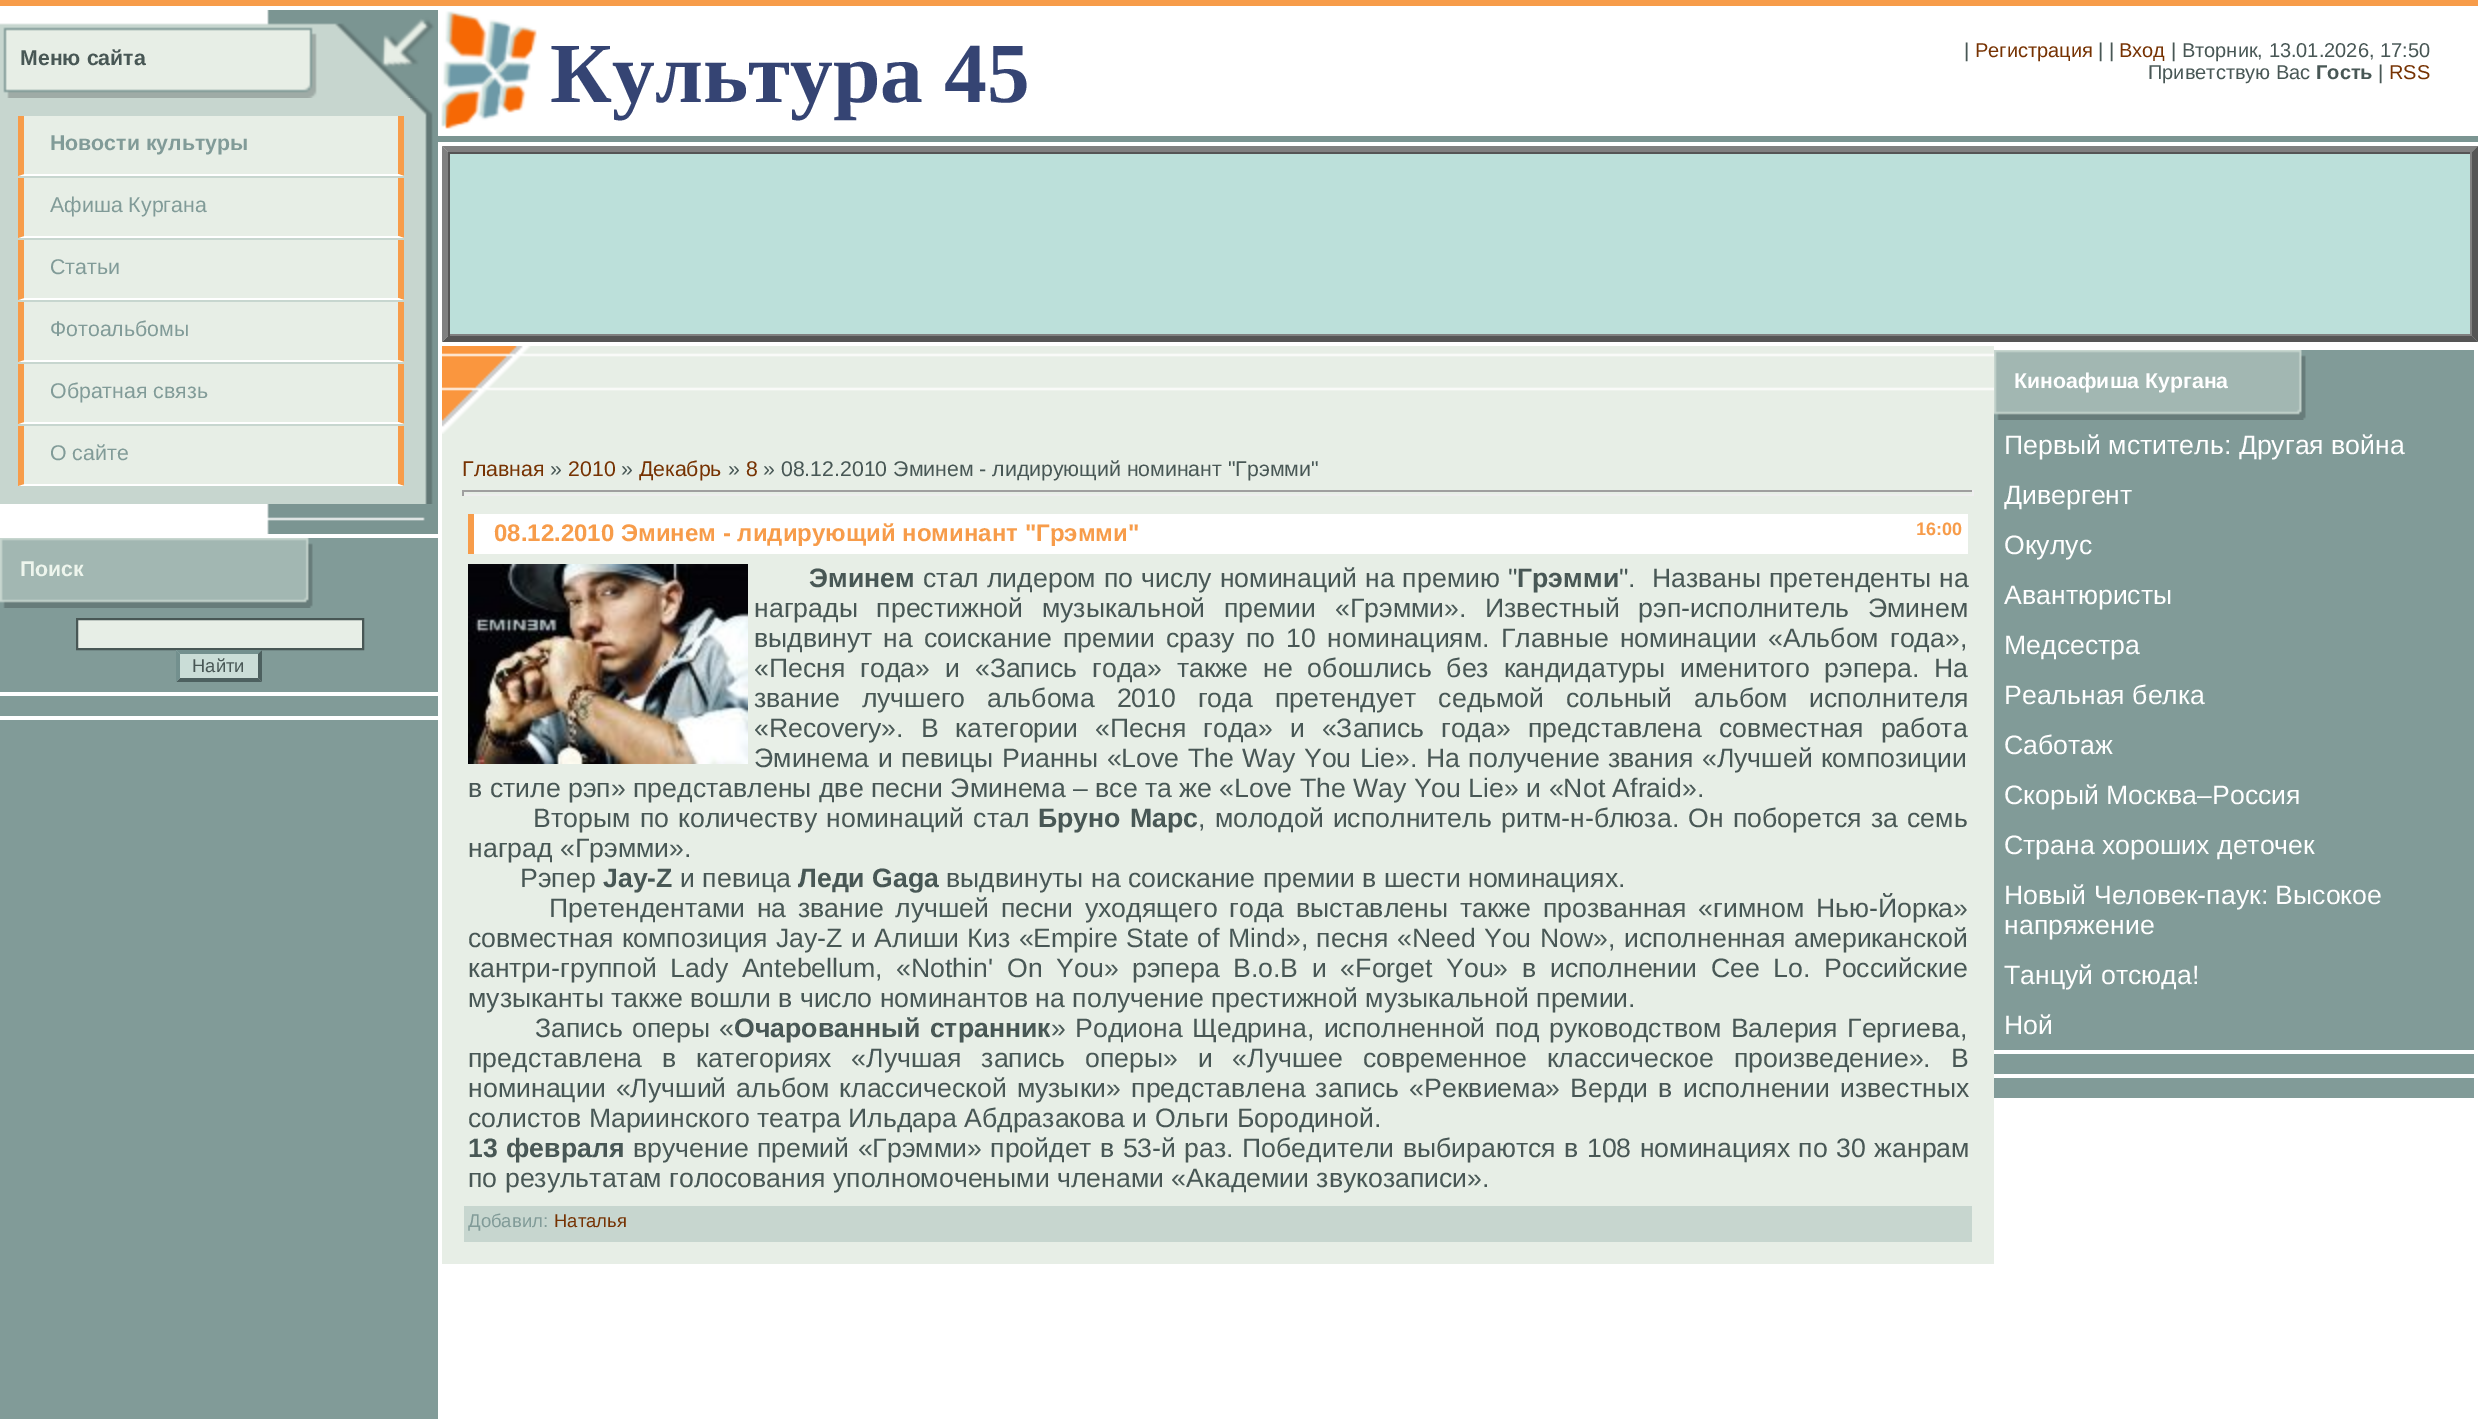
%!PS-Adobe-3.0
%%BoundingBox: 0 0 2478 1419
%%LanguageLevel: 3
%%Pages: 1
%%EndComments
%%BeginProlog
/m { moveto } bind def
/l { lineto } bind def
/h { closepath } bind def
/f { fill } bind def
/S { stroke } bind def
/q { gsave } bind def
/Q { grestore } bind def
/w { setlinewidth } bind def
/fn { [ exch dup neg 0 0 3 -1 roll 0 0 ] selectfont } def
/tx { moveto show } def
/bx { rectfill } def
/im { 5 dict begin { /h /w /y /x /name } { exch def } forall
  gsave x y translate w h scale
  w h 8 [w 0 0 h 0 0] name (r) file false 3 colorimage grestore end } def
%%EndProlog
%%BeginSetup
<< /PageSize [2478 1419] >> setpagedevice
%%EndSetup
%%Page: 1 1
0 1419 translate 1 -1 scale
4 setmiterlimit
1 setgray
0 0 2478 1419 bx
0.969 0.612 0.29 setrgbcolor
0 0 2478 6 bx
(image0.raw) 0 10 438 88 im
/LiberationSans-Bold 21.3 fn
0.282 0.341 0.333 setrgbcolor
(Меню сайта) 20 65 tx
0.78 0.839 0.812 setrgbcolor
0 98 410 406 bx
0.906 0.933 0.902 setrgbcolor
18 116 386 60 bx
0.969 0.612 0.29 setrgbcolor
404 116 m 404 176 l 398 174 l 398 116 l h f
1 setgray
404 176 m 18 176 l 24 174 l 398 174 l h f
0.969 0.612 0.29 setrgbcolor
18 176 m 18 116 l 24 116 l 24 174 l h f
0.506 0.608 0.596 setrgbcolor
(Новости культуры) 50 150 tx
0.906 0.933 0.902 setrgbcolor
18 178 386 60 bx
0.969 0.612 0.29 setrgbcolor
404 178 m 404 238 l 398 236 l 398 178 l h f
1 setgray
404 238 m 18 238 l 24 236 l 398 236 l h f
0.969 0.612 0.29 setrgbcolor
18 238 m 18 178 l 24 178 l 24 236 l h f
/LiberationSans-Regular 21.3 fn
0.506 0.608 0.596 setrgbcolor
(Афиша Кургана) 50 212 tx
0.906 0.933 0.902 setrgbcolor
18 240 386 60 bx
0.969 0.612 0.29 setrgbcolor
404 240 m 404 300 l 398 298 l 398 240 l h f
1 setgray
404 300 m 18 300 l 24 298 l 398 298 l h f
0.969 0.612 0.29 setrgbcolor
18 300 m 18 240 l 24 240 l 24 298 l h f
0.506 0.608 0.596 setrgbcolor
(Cтатьи) 50 274 tx
0.906 0.933 0.902 setrgbcolor
18 302 386 60 bx
0.969 0.612 0.29 setrgbcolor
404 302 m 404 362 l 398 360 l 398 302 l h f
1 setgray
404 362 m 18 362 l 24 360 l 398 360 l h f
0.969 0.612 0.29 setrgbcolor
18 362 m 18 302 l 24 302 l 24 360 l h f
0.506 0.608 0.596 setrgbcolor
(Фотоальбомы) 50 336 tx
0.906 0.933 0.902 setrgbcolor
18 364 386 60 bx
0.969 0.612 0.29 setrgbcolor
404 364 m 404 424 l 398 422 l 398 364 l h f
1 setgray
404 424 m 18 424 l 24 422 l 398 422 l h f
0.969 0.612 0.29 setrgbcolor
18 424 m 18 364 l 24 364 l 24 422 l h f
0.506 0.608 0.596 setrgbcolor
(Обратная связь) 50 398 tx
0.906 0.933 0.902 setrgbcolor
18 426 386 60 bx
0.969 0.612 0.29 setrgbcolor
404 426 m 404 486 l 398 484 l 398 426 l h f
1 setgray
404 486 m 18 486 l 24 484 l 398 484 l h f
0.969 0.612 0.29 setrgbcolor
18 486 m 18 426 l 24 426 l 24 484 l h f
0.506 0.608 0.596 setrgbcolor
(О сайте) 50 460 tx
(image1.raw) 410 98 28 406 im
(image2.raw) 410 98 23 17 im
(image3.raw) 267 504 171 30 im
313 538 125 70 bx
(image4.raw) 0 538 313 70 im
/LiberationSans-Bold 21.3 fn
0.933 0.961 0.929 setrgbcolor
(Поиск) 20 576 tx
0.506 0.608 0.596 setrgbcolor
0 608 438 84 bx
0.906 0.933 0.902 setrgbcolor
77 619 m 363 619 l 363 649 l 77 649 l h q f Q
0.282 0.341 0.333 setrgbcolor
2 w
S
0.792 0.867 0.843 setrgbcolor
176 650 86 32 bx
0.451 0.565 0.557 setrgbcolor
176 650 m 262 650 l 258 654 l 180 654 l h f
0.302 0.376 0.373 setrgbcolor
262 650 m 262 682 l 258 678 l 258 654 l h f
262 682 m 176 682 l 180 678 l 258 678 l h f
0.451 0.565 0.557 setrgbcolor
176 682 m 176 650 l 180 654 l 180 678 l h f
/LiberationSans-Regular 18.5 fn
0.282 0.341 0.333 setrgbcolor
(Найти) 192 672 tx
0.506 0.608 0.596 setrgbcolor
0 696 438 20 bx
0 720 438 699 bx
0.482 0.584 0.573 setrgbcolor
438 136 2040 6 bx
(image5.raw) 441 11 96 118 im
/LiberationSerif-Bold 85.5 fn
0.208 0.267 0.451 setrgbcolor
(Культура 45) 550 102 tx
/LiberationSans-Regular 20 fn
0.282 0.341 0.333 setrgbcolor
(|) 1964 57 tx
0.463 0.196 0.008 setrgbcolor
(Регистрация) 1975 57 tx
0.282 0.341 0.333 setrgbcolor
(| |) 2098 57 tx
0.463 0.196 0.008 setrgbcolor
(Вход) 2119 57 tx
0.282 0.341 0.333 setrgbcolor
(| Вторник, 13.01.2026, 17:50) 2171 57 tx
(Приветствую Вас) 2148 79 tx
/LiberationSans-Bold 20 fn
(Гость) 2316 79 tx
/LiberationSans-Regular 20 fn
(|) 2378 79 tx
0.463 0.196 0.008 setrgbcolor
(RSS) 2389 79 tx
0.502 setgray
442 146 m 2478 146 l 2472 152 l 448 152 l h f
0.333 setgray
2478 146 m 2478 342 l 2472 336 l 2472 152 l h f
2478 342 m 442 342 l 448 336 l 2472 336 l h f
0.502 setgray
442 342 m 442 146 l 448 152 l 448 336 l h f
0.737 0.878 0.855 setrgbcolor
450 154 2020 180 bx
0.333 setgray
448 152 2024 2 bx
0.502 setgray
2470 152 2 184 bx
448 334 2024 2 bx
0.333 setgray
448 152 2 184 bx
0.906 0.933 0.902 setrgbcolor
442 346 1552 918 bx
(image6.raw) 442 346 90 88 im
(image7.raw) 532 353 1462 38 im
/LiberationSans-Regular 21.3 fn
0.463 0.196 0.008 setrgbcolor
(Главная) 462 476 tx
0.282 0.341 0.333 setrgbcolor
(») 550 476 tx
0.463 0.196 0.008 setrgbcolor
(2010) 568 476 tx
0.282 0.341 0.333 setrgbcolor
(») 621 476 tx
0.463 0.196 0.008 setrgbcolor
(Декабрь) 639 476 tx
0.282 0.341 0.333 setrgbcolor
(») 728 476 tx
0.463 0.196 0.008 setrgbcolor
(8) 746 476 tx
0.282 0.341 0.333 setrgbcolor
(» 08.12.2010 Эминем - лидирующий номинант "Грэмми") 763 476 tx
0.624 setgray
462 490 1512 2 bx
0.933 setgray
1972 490 2 6 bx
462 494 1512 2 bx
0.624 setgray
462 490 2 6 bx
1 setgray
474 514 1494 40 bx
0.969 0.612 0.29 setrgbcolor
468 514 6 40 bx
/LiberationSans-Bold 24 fn
(08.12.2010 Эминем - лидирующий номинант "Грэмми") 494 541 tx
/LiberationSans-Bold 18 fn
(16:00) 1916 535 tx
(image8.raw) 468 564 280 200 im
/LiberationSans-Bold 26.67 fn
0.282 0.341 0.333 setrgbcolor
(Эминем) 809 587 tx
/LiberationSans-Regular 26.67 fn
923 587 m 0.5 0 32 (стал лидером по числу номинаций на премию ") widthshow
/LiberationSans-Bold 26.67 fn
(Грэмми) 1517 587 tx
/LiberationSans-Regular 26.67 fn
1619 587 m 0.5 0 32 (".  Названы претенденты на) widthshow
754 617 m 11.25 0 32 (награды престижной музыкальной премии «Грэмми». Известный рэп-исполнитель Эминем) widthshow
754 647 m 3.75 0 32 (выдвинут на соискание премии сразу по 10 номинациям. Главные номинации «Альбом года»,) widthshow
754 677 m 7.5 0 32 («Песня года» и «Запись года» также не обошлись без кандидатуры именитого рэпера. На) widthshow
754 707 m 14.5 0 32 (звание лучшего альбома 2010 года претендует седьмой сольный альбом исполнителя) widthshow
754 737 m 9.5 0 32 («Recovery». В категории «Песня года» и «Запись года» представлена совместная работа) widthshow
754 767 m 1 0 32 (Эминема и певицы Рианны «Love The Way You Lie». На получение звания «Лучшей композиции) widthshow
(в стиле рэп» представлены две песни Эминема – все та же «Love The Way You Lie» и «Not Afraid».) 468 797 tx
533 827 m 2 0 32 (Вторым по количеству номинаций стал) widthshow
/LiberationSans-Bold 26.67 fn
1038 827 m 1.75 0 32 (Бруно Марс) widthshow
/LiberationSans-Regular 26.67 fn
1198 827 m 1.75 0 32 (, молодой исполнитель ритм-н-блюза. Он поборется за семь) widthshow
(наград «Грэмми».) 468 857 tx
(Рэпер) 520 887 tx
/LiberationSans-Bold 26.67 fn
(Jay-Z) 603 887 tx
/LiberationSans-Regular 26.67 fn
(и певица) 680 887 tx
/LiberationSans-Bold 26.67 fn
(Леди Gaga) 798 887 tx
/LiberationSans-Regular 26.67 fn
(выдвинуты на соискание премии в шести номинациях.) 946 887 tx
549 917 m 4.25 0 32 (Претендентами на звание лучшей песни уходящего года выставлены также прозванная «гимном Нью-Йорка») widthshow
468 947 m 1.1 0 32 (совместная композиция Jay-Z и Алиши Киз «Empire State of Mind», песня «Need You Now», исполненная американской) widthshow
468 977 m 6.25 0 32 (кантри-группой Lady Antebellum, «Nothin' On You» рэпера B.o.B и «Forget You» в исполнении Cee Lo. Российские) widthshow
(музыканты также вошли в число номинантов на получение престижной музыкальной премии.) 468 1007 tx
535 1037 m 2 0 32 (Запись оперы «) widthshow
/LiberationSans-Bold 26.67 fn
734 1037 m 2 0 32 (Очарованный странник) widthshow
/LiberationSans-Regular 26.67 fn
1051 1037 m 2 0 32 (» Родиона Щедрина, исполненной под руководством Валерия Гергиева,) widthshow
468 1067 m 12.4 0 32 (представлена в категориях «Лучшая запись оперы» и «Лучшее современное классическое произведение». В) widthshow
468 1097 m 2.75 0 32 (номинации «Лучший альбом классической музыки» представлена запись «Реквиема» Верди в исполнении известных) widthshow
(солистов Мариинского театра Ильдара Абдразакова и Ольги Бородиной.) 468 1127 tx
/LiberationSans-Bold 26.67 fn
468 1157 m 1 0 32 (13 февраля) widthshow
/LiberationSans-Regular 26.67 fn
633 1157 m 1 0 32 (вручение премий «Грэмми» пройдет в 53-й раз. Победители выбираются в 108 номинациях по 30 жанрам) widthshow
(по результатам голосования уполномочеными членами «Академии звукозаписи».) 468 1187 tx
0.78 0.839 0.812 setrgbcolor
464 1206 1508 36 bx
/LiberationSans-Regular 18.5 fn
0.506 0.608 0.596 setrgbcolor
(Добавил:) 468 1227 tx
0.463 0.196 0.008 setrgbcolor
(Наталья) 554 1227 tx
0.506 0.608 0.596 setrgbcolor
2306 350 168 70 bx
(image9.raw) 1994 350 312 70 im
/LiberationSans-Bold 21.3 fn
1 setgray
(Киноафиша Кургана) 2014 388 tx
0.506 0.608 0.596 setrgbcolor
1994 420 480 630 bx
/LiberationSans-Regular 26.67 fn
1 setgray
(Первый мститель: Другая война) 2004 454 tx
(Дивергент) 2004 504 tx
(Окулус) 2004 554 tx
(Авантюристы) 2004 604 tx
(Медсестра) 2004 654 tx
(Реальная белка) 2004 704 tx
(Саботаж) 2004 754 tx
(Скорый Москва–Россия) 2004 804 tx
(Страна хороших деточек) 2004 854 tx
(Новый Человек-паук: Высокое) 2004 904 tx
(напряжение) 2004 934 tx
(Танцуй отсюда!) 2004 984 tx
(Ной) 2004 1034 tx
0.506 0.608 0.596 setrgbcolor
1994 1054 480 20 bx
1994 1078 480 20 bx
showpage
%%EOF
